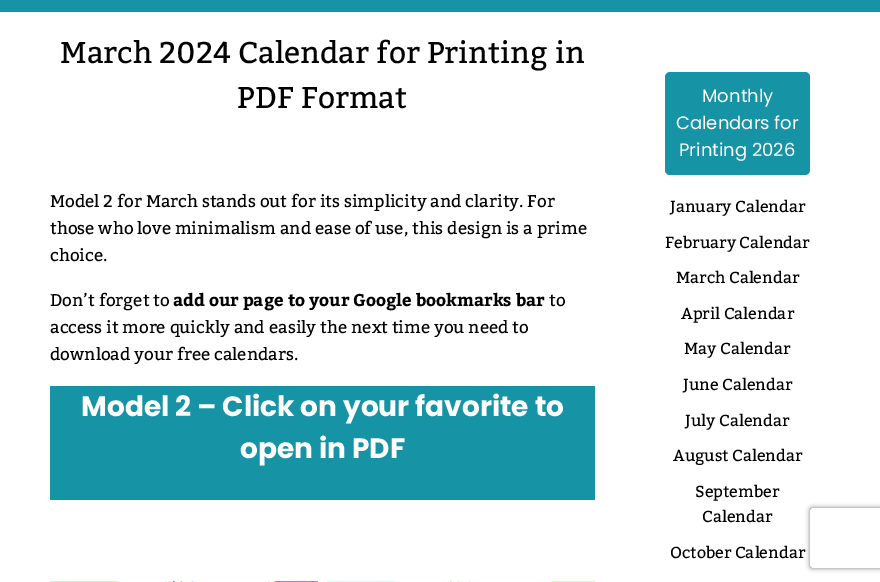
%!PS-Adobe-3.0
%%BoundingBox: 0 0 880 582
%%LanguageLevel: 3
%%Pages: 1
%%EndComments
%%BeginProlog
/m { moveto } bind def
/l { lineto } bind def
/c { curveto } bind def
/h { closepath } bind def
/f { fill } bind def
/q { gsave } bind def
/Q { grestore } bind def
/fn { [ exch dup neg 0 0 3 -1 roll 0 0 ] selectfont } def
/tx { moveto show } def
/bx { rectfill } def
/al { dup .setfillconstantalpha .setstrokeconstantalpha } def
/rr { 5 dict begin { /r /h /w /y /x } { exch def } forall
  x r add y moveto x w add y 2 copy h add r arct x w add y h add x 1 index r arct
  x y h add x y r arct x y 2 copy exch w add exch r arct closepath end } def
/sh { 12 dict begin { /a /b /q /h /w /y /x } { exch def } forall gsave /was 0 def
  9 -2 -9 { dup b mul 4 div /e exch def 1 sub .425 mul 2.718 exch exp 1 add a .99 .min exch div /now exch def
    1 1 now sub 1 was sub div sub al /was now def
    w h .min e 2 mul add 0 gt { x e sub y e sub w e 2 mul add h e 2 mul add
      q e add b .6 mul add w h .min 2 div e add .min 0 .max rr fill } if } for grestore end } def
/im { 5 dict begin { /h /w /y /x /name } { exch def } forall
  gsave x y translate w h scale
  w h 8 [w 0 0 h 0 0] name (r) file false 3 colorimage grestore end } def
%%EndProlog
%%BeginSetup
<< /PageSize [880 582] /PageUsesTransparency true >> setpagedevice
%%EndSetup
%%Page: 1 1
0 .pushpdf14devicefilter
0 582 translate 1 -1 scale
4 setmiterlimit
1 setgray
0 0 880 582 bx
0.086 0.576 0.647 setrgbcolor
0 0 880 12 bx
/Kadwa-Regular 30 fn
0 setgray
(March 2024 Calendar for Printing in) 60 63 tx
(PDF Format) 237 108 tx
/Kadwa-Regular 17 fn
(Model 2 for March stands out for its simplicity and clarity. For) 50 207 tx
(those who love minimalism and ease of use, this design is a prime) 50 234 tx
(choice.) 50 261 tx
(Don’t forget to) 50 306 tx
/Kadwa-Bold 17 fn
(add our page to your Google bookmarks bar) 173 306 tx
/Kadwa-Regular 17 fn
(to) 549 306 tx
(access it more quickly and easily the next time you need to) 50 333 tx
(download your free calendars.) 50 360 tx
0.086 0.576 0.647 setrgbcolor
50 386 545 114 bx
/Poppins-Bold 28 fn
1 setgray
(Model 2 – Click on your favorite to) 81 416 tx
(open in PDF) 240 458 tx
(image0.raw) 50 581 268 1 im
(image1.raw) 327 581 268 1 im
0.086 0.576 0.647 setrgbcolor
665 72 145 103 5 rr f
/Poppins-Regular 18 fn
1 setgray
(Monthly) 702 102 tx
(Calendars for) 676 129 tx
(Printing 2026) 679 156 tx
/Kadwa-Regular 16 fn
0 setgray
(January Calendar) 670 212 tx
(February Calendar) 665 248 tx
(March Calendar) 676 283 tx
(April Calendar) 681 319 tx
(May Calendar) 684 354 tx
(June Calendar) 683 390 tx
(July Calendar) 685 426 tx
(August Calendar) 673 461 tx
(September) 695 497 tx
(Calendar) 702 522 tx
(October Calendar) 670 558 tx
q
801 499 m 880 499 l 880 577 l 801 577 l h 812 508 m 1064 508 l 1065 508 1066 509 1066 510 c 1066 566 l 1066 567 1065 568 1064 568 c 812 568 l 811 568 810 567 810 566 c 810 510 l 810 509 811 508 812 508 c h eoclip newpath
0.502 setgray
810 508 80 60 2 2.5 1 sh
Q
.poppdf14devicefilter showpage
%%EOF
